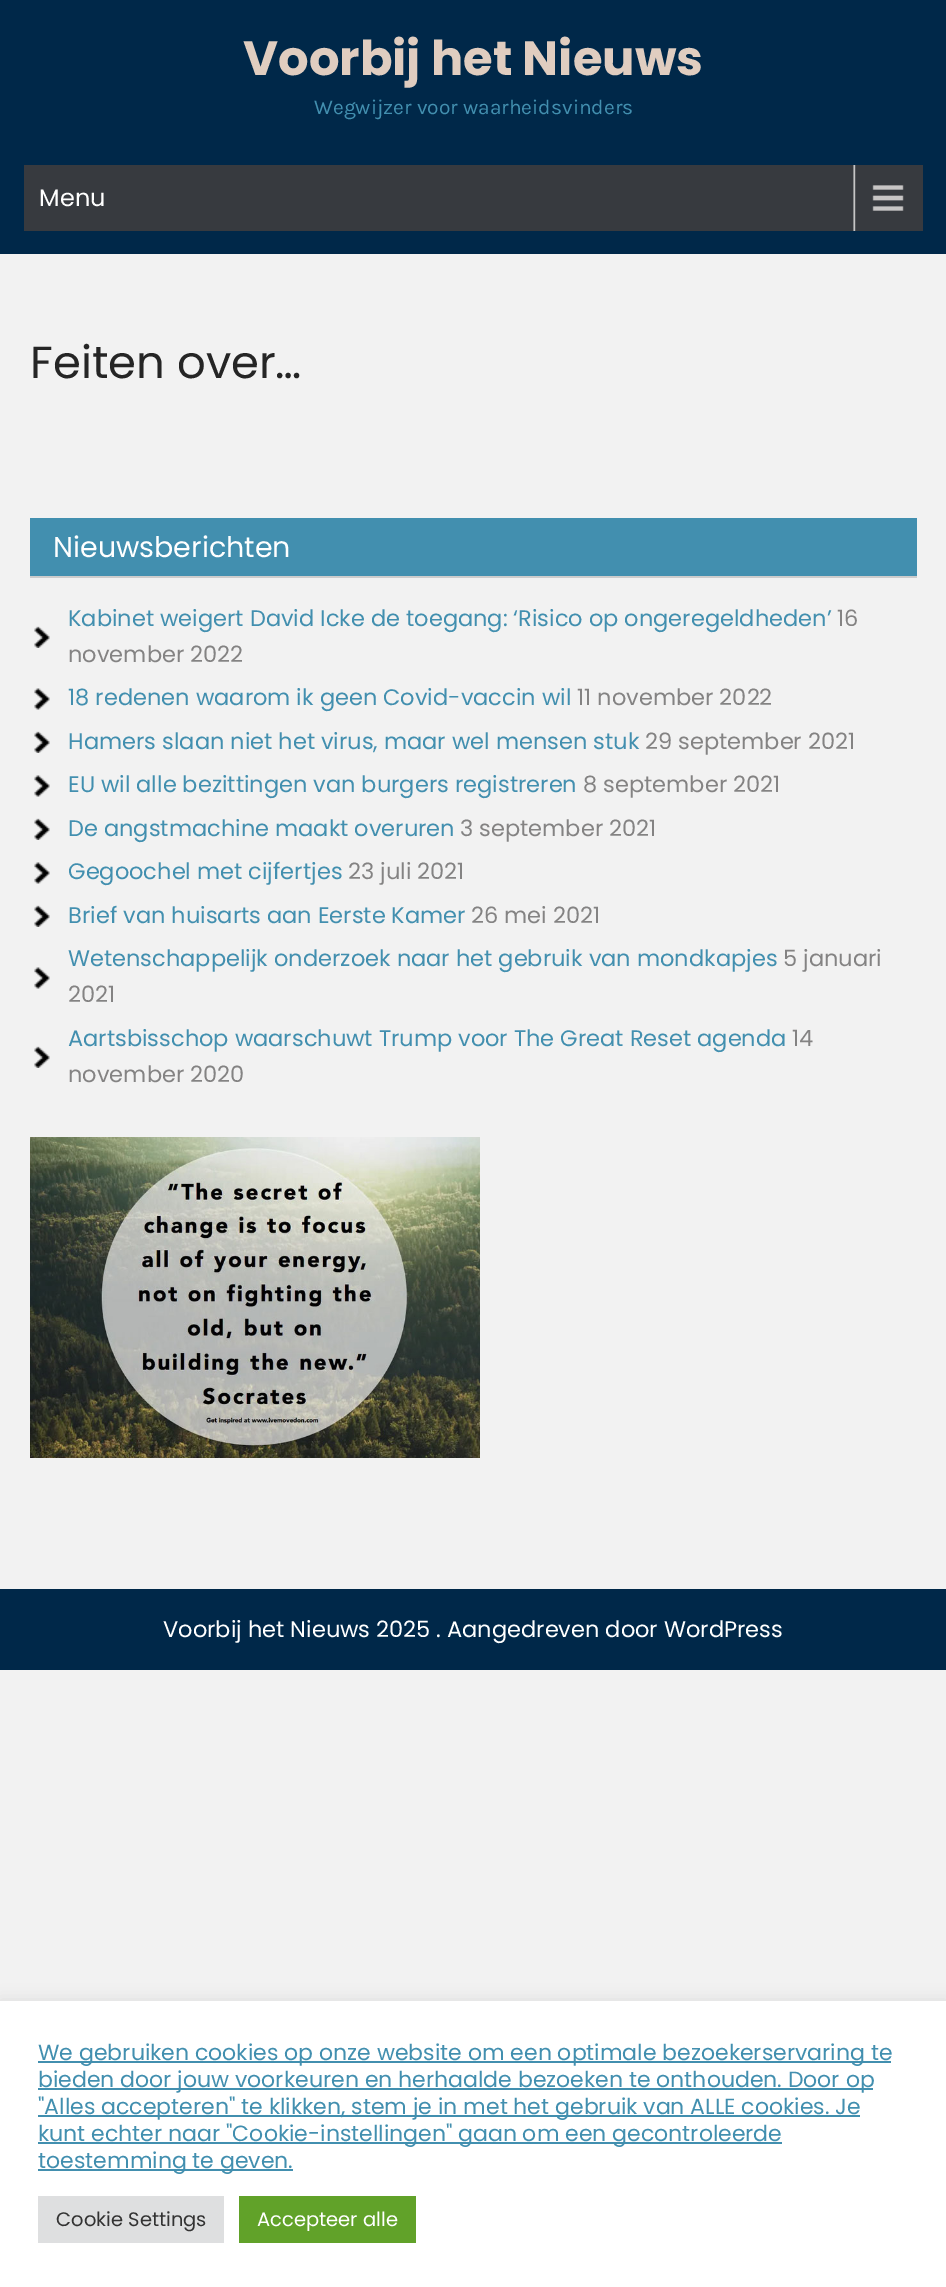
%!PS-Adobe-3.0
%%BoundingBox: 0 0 946 2287
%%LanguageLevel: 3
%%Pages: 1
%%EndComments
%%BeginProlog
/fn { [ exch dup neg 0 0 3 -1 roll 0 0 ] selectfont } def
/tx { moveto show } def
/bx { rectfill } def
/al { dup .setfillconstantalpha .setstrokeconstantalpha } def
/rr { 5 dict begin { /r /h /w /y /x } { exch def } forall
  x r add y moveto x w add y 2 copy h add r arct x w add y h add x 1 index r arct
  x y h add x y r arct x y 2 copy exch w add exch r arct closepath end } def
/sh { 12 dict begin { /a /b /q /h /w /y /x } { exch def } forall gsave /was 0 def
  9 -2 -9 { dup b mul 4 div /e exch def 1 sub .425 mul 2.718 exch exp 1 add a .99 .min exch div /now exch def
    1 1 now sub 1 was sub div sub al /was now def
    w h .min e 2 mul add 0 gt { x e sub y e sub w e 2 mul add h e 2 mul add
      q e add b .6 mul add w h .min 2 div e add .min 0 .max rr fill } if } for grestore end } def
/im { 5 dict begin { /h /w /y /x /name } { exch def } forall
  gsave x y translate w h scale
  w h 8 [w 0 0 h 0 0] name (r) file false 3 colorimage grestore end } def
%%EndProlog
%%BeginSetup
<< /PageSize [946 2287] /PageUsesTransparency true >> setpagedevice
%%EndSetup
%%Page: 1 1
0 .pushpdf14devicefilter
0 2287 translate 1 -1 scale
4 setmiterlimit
0.949 setgray
0 0 946 2287 bx
0 0.157 0.286 setrgbcolor
0 0 946 254 bx
/Poppins-Bold 48 fn
0.878 0.804 0.753 setrgbcolor
(Voorbij het Nieuws) 243 75 tx
/Karla-Regular 21 fn
0.259 0.561 0.686 setrgbcolor
(Wegwijzer voor waarheidsvinders) 314 114 tx
0.216 0.227 0.247 setrgbcolor
24 165 899 66 bx
(image0.raw) 853 165 51 66 im
/Poppins-Regular 24 fn
1 setgray
(Menu) 39 206 tx
/Poppins-Regular 45 fn
0.145 setgray
(Feiten over…) 30 378 tx
0.259 0.561 0.686 setrgbcolor
30 518 887 58 bx
0.8 setgray
30 576 887 2 bx
/Poppins-Regular 28.5 fn
1 setgray
(Nieuwsberichten) 53 557 tx
(image1.raw) 34 626 16 22 im
/Poppins-Regular 22.5 fn
0.259 0.561 0.686 setrgbcolor
(Kabinet weigert David Icke de toegang: ‘Risico op ongeregeldheden’) 68 626 tx
0.518 0.514 0.514 setrgbcolor
(16) 837 626 tx
(november 2022) 68 662 tx
(image2.raw) 34 688 16 22 im
0.259 0.561 0.686 setrgbcolor
(18 redenen waarom ik geen Covid-vaccin wil) 68 705 tx
0.518 0.514 0.514 setrgbcolor
(11 november 2022) 577 705 tx
(image1.raw) 34 731 16 22 im
0.259 0.561 0.686 setrgbcolor
(Hamers slaan niet het virus, maar wel mensen stuk) 68 749 tx
0.518 0.514 0.514 setrgbcolor
(29 september 2021) 645 749 tx
(image2.raw) 34 775 16 22 im
0.259 0.561 0.686 setrgbcolor
(EU wil alle bezittingen van burgers registreren) 68 792 tx
0.518 0.514 0.514 setrgbcolor
(8 september 2021) 583 792 tx
(image1.raw) 34 818 16 22 im
0.259 0.561 0.686 setrgbcolor
(De angstmachine maakt overuren) 68 836 tx
0.518 0.514 0.514 setrgbcolor
(3 september 2021) 460 836 tx
(image2.raw) 34 862 16 22 im
0.259 0.561 0.686 setrgbcolor
(Gegoochel met cijfertjes) 68 879 tx
0.518 0.514 0.514 setrgbcolor
(23 juli 2021) 348 879 tx
(image1.raw) 34 905 16 22 im
0.259 0.561 0.686 setrgbcolor
(Brief van huisarts aan Eerste Kamer) 68 923 tx
0.518 0.514 0.514 setrgbcolor
(26 mei 2021) 471 923 tx
(image2.raw) 34 967 16 22 im
0.259 0.561 0.686 setrgbcolor
(Wetenschappelijk onderzoek naar het gebruik van mondkapjes) 68 966 tx
0.518 0.514 0.514 setrgbcolor
(5 januari) 783 966 tx
(2021) 68 1002 tx
(image1.raw) 34 1046 16 22 im
0.259 0.561 0.686 setrgbcolor
(Aartsbisschop waarschuwt Trump voor The Great Reset agenda) 68 1046 tx
0.518 0.514 0.514 setrgbcolor
(14) 792 1046 tx
(november 2020) 68 1082 tx
(image3.raw) 30 1137 450 321 im
0 0.157 0.286 setrgbcolor
0 1589 946 81 bx
1 setgray
(Voorbij het Nieuws 2025 . Aangedreven door WordPress) 163 1637 tx
0.675 0.671 0.671 setrgbcolor
0 2000 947 286 0 7.5 0.3 sh
1 setgray
0 2001 946 286 bx
0.259 0.561 0.686 setrgbcolor
38 2061 853 2 bx
/Poppins-Regular 22 fn
(We gebruiken cookies op onze website om een optimale bezoekerservaring te) 38 2060 tx
38 2088 835 2 bx
(bieden door jouw voorkeuren en herhaalde bezoeken te onthouden. Door op) 38 2087 tx
38 2115 822 2 bx
("Alles accepteren" te klikken, stem je in met het gebruik van ALLE cookies. Je) 38 2114 tx
38 2142 744 2 bx
(kunt echter naar "Cookie-instellingen" gaan om een gecontroleerde) 38 2141 tx
38 2169 255 2 bx
(toestemming te geven.) 38 2168 tx
0.871 0.875 0.878 setrgbcolor
38 2196 186 47 bx
/Poppins-Regular 19.5 fn
0.2 setgray
(Cookie Settings) 56 2226 tx
0.38 0.635 0.161 setrgbcolor
239 2196 177 47 bx
1 setgray
(Accepteer alle) 257 2226 tx
.poppdf14devicefilter showpage
%%EOF
